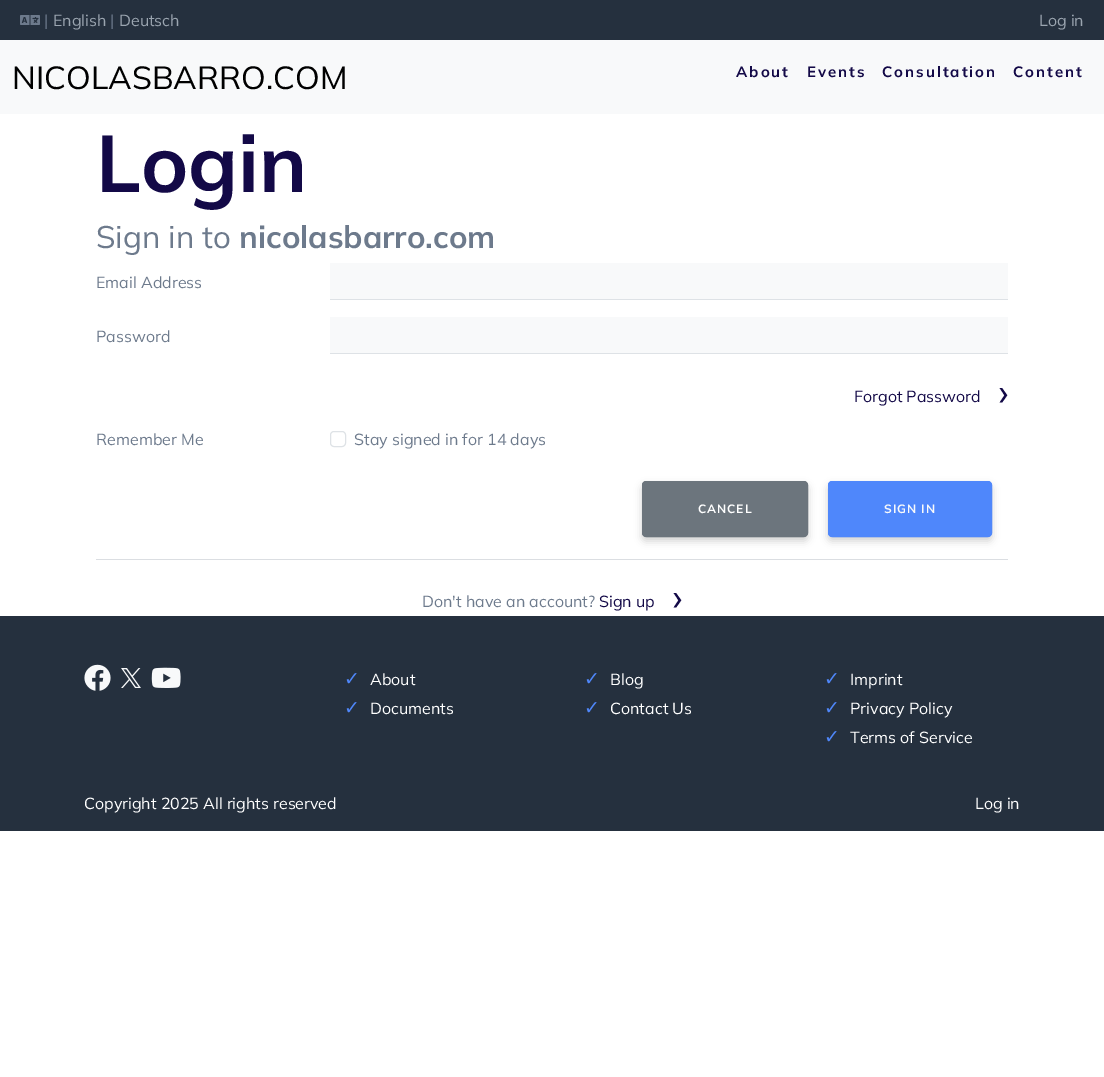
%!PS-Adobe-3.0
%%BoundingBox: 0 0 1104 1077
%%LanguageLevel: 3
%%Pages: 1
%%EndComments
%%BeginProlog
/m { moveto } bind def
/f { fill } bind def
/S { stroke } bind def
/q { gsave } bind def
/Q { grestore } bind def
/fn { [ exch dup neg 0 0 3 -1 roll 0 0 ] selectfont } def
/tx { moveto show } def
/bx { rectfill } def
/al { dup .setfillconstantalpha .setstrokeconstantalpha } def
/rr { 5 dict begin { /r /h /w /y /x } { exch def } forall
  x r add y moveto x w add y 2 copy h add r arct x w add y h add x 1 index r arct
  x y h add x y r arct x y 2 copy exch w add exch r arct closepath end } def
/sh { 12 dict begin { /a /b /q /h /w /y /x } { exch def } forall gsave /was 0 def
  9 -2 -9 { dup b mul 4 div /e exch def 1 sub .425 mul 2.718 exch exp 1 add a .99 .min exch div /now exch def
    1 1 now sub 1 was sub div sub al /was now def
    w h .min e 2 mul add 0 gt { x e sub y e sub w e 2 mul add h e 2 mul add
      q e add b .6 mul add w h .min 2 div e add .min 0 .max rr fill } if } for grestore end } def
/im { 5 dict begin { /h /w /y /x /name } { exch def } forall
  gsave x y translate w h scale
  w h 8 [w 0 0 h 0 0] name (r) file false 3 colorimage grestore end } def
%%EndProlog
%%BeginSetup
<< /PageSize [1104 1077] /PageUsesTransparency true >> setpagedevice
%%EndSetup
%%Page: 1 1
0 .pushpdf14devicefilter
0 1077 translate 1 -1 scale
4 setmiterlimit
1 setgray
0 0 1104 1077 bx
0.145 0.188 0.243 setrgbcolor
0 0 1104 40 bx
(image0.raw) 20 15 20 10 im
/Mulish-ExtraLight 16 fn
0.427 0.478 0.549 setrgbcolor
(|) 44 26 tx
0.608 0.647 0.69 setrgbcolor
(English) 53 26 tx
0.427 0.478 0.549 setrgbcolor
(|) 110 26 tx
0.608 0.647 0.69 setrgbcolor
(Deutsch) 119 26 tx
(Log in) 1039 26 tx
0.973 0.976 0.98 setrgbcolor
0 40 1104 74 bx
/Mulish-ExtraLight 32 fn
0 setgray
(NICOLASBARRO.COM) 12 89 tx
/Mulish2-ExtraLight 15 fn
0.075 0.035 0.278 setrgbcolor
736 77 m 2 0 (About) ashow
807 77 m 2 0 (Events) ashow
882 77 m 2 0 (Consultation) ashow
1013 77 m 2 0 (Content) ashow
/Mulish2-ExtraLight 80 fn
(Login) 96 192 tx
/Mulish-ExtraLight 31.25 fn
0.427 0.478 0.549 setrgbcolor
(Sign in to) 96 248 tx
/Mulish2-ExtraLight 31.25 fn
(nicolasbarro.com) 239 248 tx
/Mulish-ExtraLight 16 fn
(Email Address) 96 288 tx
0.973 0.976 0.98 setrgbcolor
330 263 678 36 bx
0.871 0.886 0.902 setrgbcolor
330 299 678 1 bx
0.427 0.478 0.549 setrgbcolor
(Password) 96 342 tx
0.973 0.976 0.98 setrgbcolor
330 317 678 36 bx
0.871 0.886 0.902 setrgbcolor
330 353 678 1 bx
0.075 0.035 0.278 setrgbcolor
(Forgot Password) 854 402 tx
/Mulish-ExtraLight 40 fn
(›) 998 406 tx
/Mulish-ExtraLight 16 fn
0.427 0.478 0.549 setrgbcolor
(Remember Me) 96 445 tx
0.871 0.886 0.902 setrgbcolor
330.5 431.5 15 15 3.5 rr S
0.427 0.478 0.549 setrgbcolor
(Stay signed in for 14 days) 354 445 tx
0 setgray
642 485 166 56 4 4 0.18 sh
0.424 0.459 0.49 setrgbcolor
642.5 481.5 165 55 3.5 rr q f Q
S
/Mulish2-ExtraLight 12 fn
1 setgray
698 513 m 1 0 (CANCEL) ashow
0 setgray
828 485 164 56 4 4 0.18 sh
0.31 0.529 0.984 setrgbcolor
828.5 481.5 163 55 3.5 rr q f Q
S
0.973 0.976 0.98 setrgbcolor
884 513 m 1 0 (SIGN IN) ashow
0.859 0.871 0.886 setrgbcolor
96 559 912 1 bx
/Mulish-ExtraLight 16 fn
0.427 0.478 0.549 setrgbcolor
(Don't have an account?) 422 607 tx
0.075 0.035 0.278 setrgbcolor
(Sign up) 599 607 tx
/Mulish-ExtraLight 40 fn
(›) 672 611 tx
0.145 0.188 0.243 setrgbcolor
0 616 1104 215 bx
(image1.raw) 84 664 27 27 im
(image2.raw) 121 668 20 20 im
(image3.raw) 151 667 30 21 im
/DejaVuSans-Regular 19 fn
0.31 0.529 0.984 setrgbcolor
(✓) 344 685 tx
/Mulish-ExtraLight 16 fn
1 setgray
(About) 370 685 tx
/DejaVuSans-Regular 19 fn
0.31 0.529 0.984 setrgbcolor
(✓) 344 714 tx
/Mulish-ExtraLight 16 fn
1 setgray
(Documents) 370 714 tx
/DejaVuSans-Regular 19 fn
0.31 0.529 0.984 setrgbcolor
(✓) 584 685 tx
/Mulish-ExtraLight 16 fn
1 setgray
(Blog) 610 685 tx
/DejaVuSans-Regular 19 fn
0.31 0.529 0.984 setrgbcolor
(✓) 584 714 tx
/Mulish-ExtraLight 16 fn
1 setgray
(Contact Us) 610 714 tx
/DejaVuSans-Regular 19 fn
0.31 0.529 0.984 setrgbcolor
(✓) 824 685 tx
/Mulish-ExtraLight 16 fn
1 setgray
(Imprint) 850 685 tx
/DejaVuSans-Regular 19 fn
0.31 0.529 0.984 setrgbcolor
(✓) 824 714 tx
/Mulish-ExtraLight 16 fn
1 setgray
(Privacy Policy) 850 714 tx
/DejaVuSans-Regular 19 fn
0.31 0.529 0.984 setrgbcolor
(✓) 824 743 tx
/Mulish-ExtraLight 16 fn
1 setgray
(Terms of Service) 850 743 tx
(Copyright 2025 All rights reserved) 84 809 tx
(Log in) 975 809 tx
.poppdf14devicefilter showpage
%%EOF
